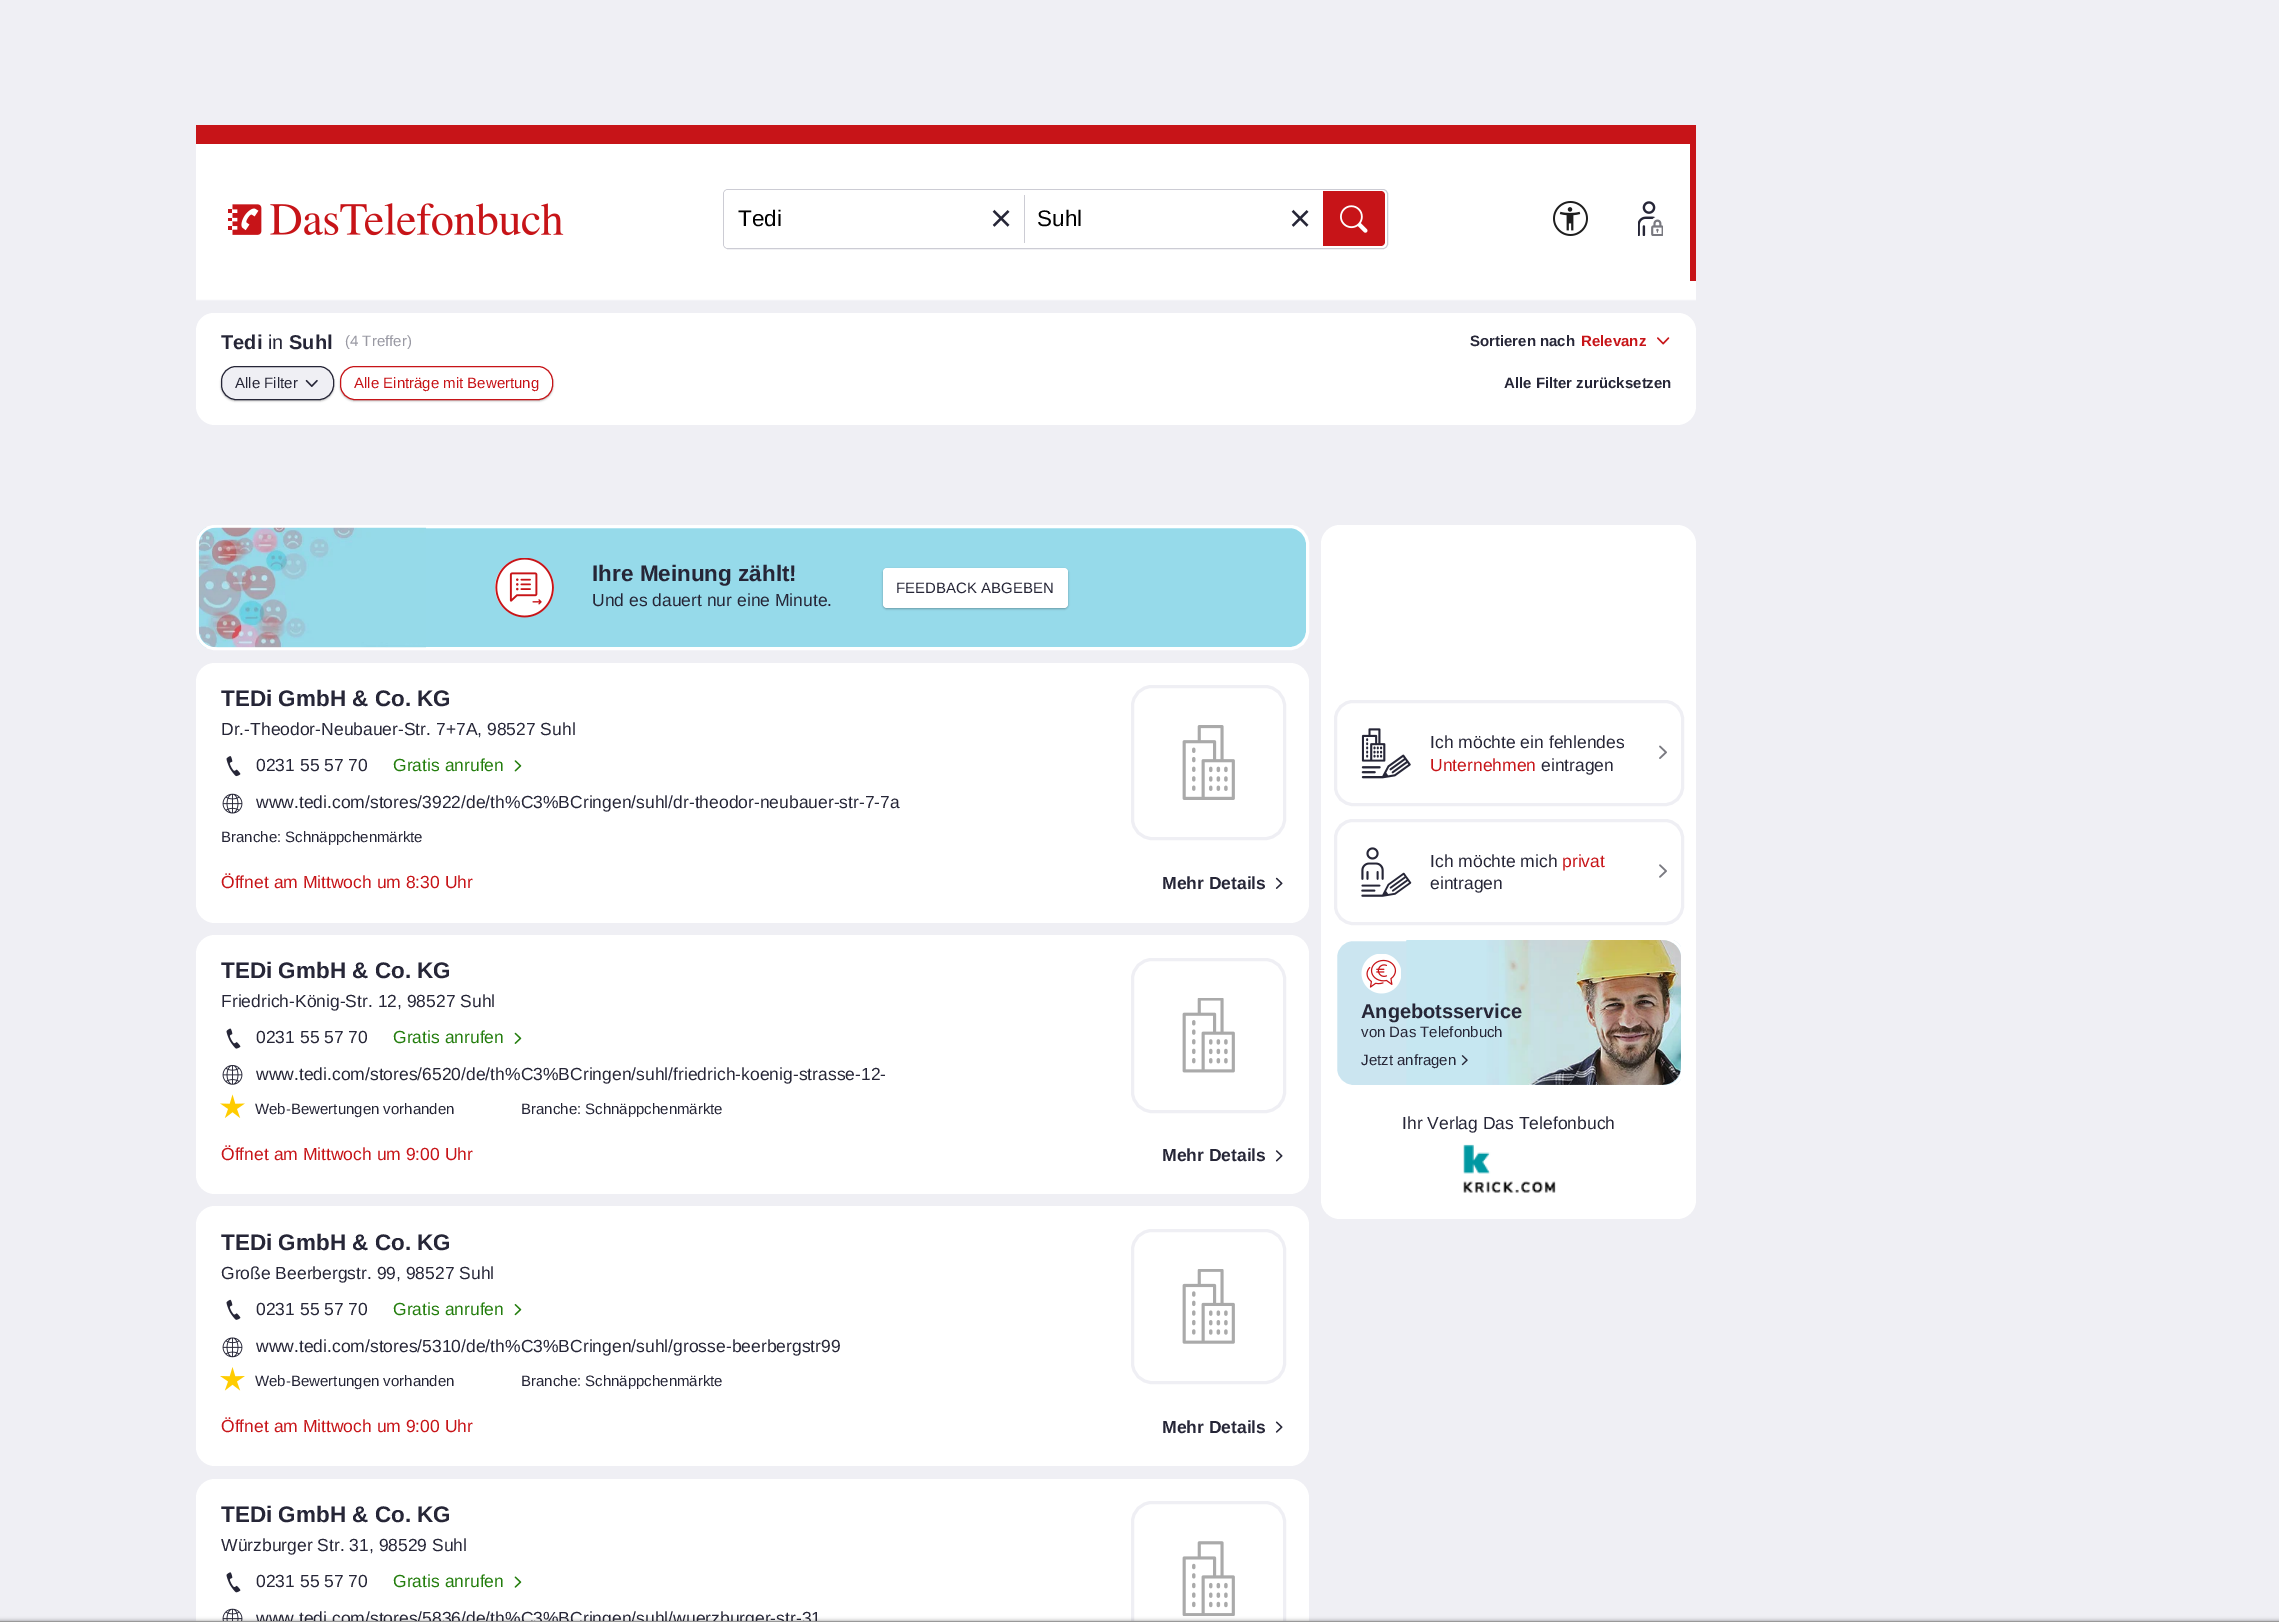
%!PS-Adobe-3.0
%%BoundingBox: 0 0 2279 1622
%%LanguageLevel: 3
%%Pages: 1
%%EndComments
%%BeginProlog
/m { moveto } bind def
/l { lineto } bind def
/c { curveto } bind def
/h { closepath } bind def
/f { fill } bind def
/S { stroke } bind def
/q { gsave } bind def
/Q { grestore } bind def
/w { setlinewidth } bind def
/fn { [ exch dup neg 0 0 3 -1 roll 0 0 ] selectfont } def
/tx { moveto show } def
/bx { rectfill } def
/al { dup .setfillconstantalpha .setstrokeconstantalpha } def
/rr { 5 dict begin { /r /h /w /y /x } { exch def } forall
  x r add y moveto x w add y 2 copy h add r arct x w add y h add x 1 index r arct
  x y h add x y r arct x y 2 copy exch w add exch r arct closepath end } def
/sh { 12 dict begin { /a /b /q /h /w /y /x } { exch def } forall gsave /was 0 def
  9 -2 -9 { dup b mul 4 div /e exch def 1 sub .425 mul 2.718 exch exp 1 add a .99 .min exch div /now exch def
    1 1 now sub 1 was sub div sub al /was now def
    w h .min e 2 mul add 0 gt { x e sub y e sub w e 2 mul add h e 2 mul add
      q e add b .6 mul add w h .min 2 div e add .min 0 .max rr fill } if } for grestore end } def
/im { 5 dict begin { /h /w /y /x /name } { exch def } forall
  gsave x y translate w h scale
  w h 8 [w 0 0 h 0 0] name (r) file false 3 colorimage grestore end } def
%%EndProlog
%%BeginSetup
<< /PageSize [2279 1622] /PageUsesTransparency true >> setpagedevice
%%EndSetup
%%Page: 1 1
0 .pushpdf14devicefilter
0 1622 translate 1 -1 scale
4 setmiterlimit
0.937 0.937 0.957 setrgbcolor
0 0 2279 1622 bx
(image0.raw) 196 144 1500 157 im
0.78 0.078 0.094 setrgbcolor
196 125 1500 19 bx
(image1.raw) 228 203 336 33 im
0.8 0.8 0.831 setrgbcolor
723.5 189.5 664 59 4.5 rr S
1 setgray
724 190 662 58 4 rr f
/LiberationSans-Regular 22.5 fn
0 setgray
(Tedi) 738 226 tx
/LiberationSans-Regular 38 fn
0.149 0.149 0.216 setrgbcolor
(×) 990 231 tx
0.8 0.8 0.831 setrgbcolor
1024 195 1 48 bx
/LiberationSans-Regular 22.5 fn
0 setgray
(Suhl) 1037 226 tx
/LiberationSans-Regular 38 fn
0.149 0.149 0.216 setrgbcolor
(×) 1289 231 tx
0.78 0.078 0.094 setrgbcolor
1323 191 m 1381 191 l 1383 191 1385 193 1385 195 c 1385 242 l 1385 244 1383 246 1381 246 c 1323 246 l h f
(image2.raw) 1340 205 28 28 im
(image3.raw) 1553 201 35 35 im
(image4.raw) 1638 201 25 35 im
1690 141 6 140 bx
1 setgray
196 331 1500 75 bx
214 313 m 1678 313 l 1688 313 1696 321 1696 331 c 196 331 l 196 321 204 313 214 313 c h f
/LiberationSans-Bold 20 fn
0.149 0.149 0.216 setrgbcolor
(Tedi) 221 349 tx
/LiberationSans-Regular 20 fn
(in) 268 349 tx
/LiberationSans-Bold 20 fn
(Suhl) 289 349 tx
/LiberationSans-Regular 15 fn
0.6 0.6 0.639 setrgbcolor
(\(4 Treffer\)) 345 346 tx
/LiberationSans-Bold 15 fn
0.149 0.149 0.216 setrgbcolor
(Sortieren nach) 1470 346 tx
0.78 0.078 0.094 setrgbcolor
(Relevanz) 1581 346 tx
(image5.raw) 1657 337 13 8 im
0 setgray
221 368 113 33 15 1 0.3 sh
0.937 0.937 0.957 setrgbcolor
221.5 366.5 112 33 14.5 rr q f Q
0.149 0.149 0.216 setrgbcolor
S
/LiberationSans-Regular 15 fn
(Alle Filter) 235 388 tx
(image6.raw) 305 379 13 8 im
q
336 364 m 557 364 l 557 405 l 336 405 l h 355 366 m 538 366 l 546.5 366 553 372.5 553 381 c 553 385 l 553 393.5 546.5 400 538 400 c 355 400 l 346.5 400 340 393.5 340 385 c 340 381 l 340 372.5 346.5 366 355 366 c h eoclip newpath
0 setgray
340 368 213 33 15 1 0.3 sh
Q
0.78 0.078 0.094 setrgbcolor
340.5 366.5 212 33 14.5 rr S
(Alle Einträge mit Bewertung) 354 388 tx
/LiberationSans-Bold 15 fn
0.149 0.149 0.216 setrgbcolor
(Alle Filter zurücksetzen) 1504 388 tx
1 setgray
196 406 m 1696 406 l 1696 416.5 1687.5 425 1677 425 c 215 425 l 204.5 425 196 416.5 196 406 c h f
0.588 0.855 0.918 setrgbcolor
197.5 526.5 1110 122 17.5 rr q f Q
1 setgray
3 w
S
(image7.raw) 198 527 228 121 im
(image8.raw) 495 558 59 60 im
/LiberationSans-Bold 22.5 fn
0.149 0.149 0.216 setrgbcolor
(Ihre Meinung zählt!) 592 581 tx
/LiberationSans-Regular 17.5 fn
(Und es dauert nur eine Minute.) 592 606 tx
0 setgray
883 569 185 40 4 1 0.3 sh
1 setgray
883 568 185 40 4 rr f
/LiberationSans-Regular 15 fn
0.149 0.149 0.216 setrgbcolor
(FEEDBACK ABGEBEN) 896 593 tx
1 setgray
196 663 1113 260 19 rr f
/LiberationSans-Bold 22.5 fn
0.149 0.149 0.216 setrgbcolor
(TEDi GmbH & Co. KG) 221 706 tx
/LiberationSans-Regular 17.5 fn
(Dr.-Theodor-Neubauer-Str. 7+7A, 98527 Suhl) 221 735 tx
(image9.raw) 226 756 15 21 im
(0231 55 57 70) 256 771 tx
0.137 0.49 0.051 setrgbcolor
(Gratis anrufen) 393 771 tx
(image10.raw) 514 760 8 12 im
(image11.raw) 222 793 21 21 im
0.149 0.149 0.216 setrgbcolor
(www.tedi.com/stores/3922/de/th%C3%BCringen/suhl/dr-theodor-neubauer-str-7-7a) 256 808 tx
/LiberationSans-Regular 15 fn
(Branche: Schnäppchenmärkte) 221 842 tx
0.937 0.937 0.957 setrgbcolor
1132.5 686.5 152 152 19.5 rr S
(image12.raw) 1182 725 53 75 im
/LiberationSans-Regular 17.5 fn
0.78 0.078 0.094 setrgbcolor
(Öffnet am Mittwoch um 8:30 Uhr) 221 888 tx
/LiberationSans-Bold 17.5 fn
0.149 0.149 0.216 setrgbcolor
(Mehr Details) 1162 889 tx
(image13.raw) 1275 877 8 12 im
1 setgray
196 935 1113 259 19 rr f
/LiberationSans-Bold 22.5 fn
0.149 0.149 0.216 setrgbcolor
(TEDi GmbH & Co. KG) 221 978 tx
/LiberationSans-Regular 17.5 fn
(Friedrich-König-Str. 12, 98527 Suhl) 221 1007 tx
(image14.raw) 226 1028 15 21 im
(0231 55 57 70) 256 1043 tx
0.137 0.49 0.051 setrgbcolor
(Gratis anrufen) 393 1043 tx
(image15.raw) 514 1032 8 12 im
(image16.raw) 222 1065 21 20 im
0.149 0.149 0.216 setrgbcolor
(www.tedi.com/stores/6520/de/th%C3%BCringen/suhl/friedrich-koenig-strasse-12-) 256 1080 tx
(image17.raw) 220 1094 25 24 im
/LiberationSans-Regular 15 fn
(Web-Bewertungen vorhanden) 255 1114 tx
(Branche: Schnäppchenmärkte) 521 1114 tx
0.937 0.937 0.957 setrgbcolor
1132.5 959.5 152 152 19.5 rr S
(image18.raw) 1182 998 53 75 im
/LiberationSans-Regular 17.5 fn
0.78 0.078 0.094 setrgbcolor
(Öffnet am Mittwoch um 9:00 Uhr) 221 1160 tx
/LiberationSans-Bold 17.5 fn
0.149 0.149 0.216 setrgbcolor
(Mehr Details) 1162 1161 tx
(image19.raw) 1275 1150 8 12 im
1 setgray
196 1206 1113 260 19 rr f
/LiberationSans-Bold 22.5 fn
0.149 0.149 0.216 setrgbcolor
(TEDi GmbH & Co. KG) 221 1250 tx
/LiberationSans-Regular 17.5 fn
(Große Beerbergstr. 99, 98527 Suhl) 221 1279 tx
(image20.raw) 226 1299 15 21 im
(0231 55 57 70) 256 1315 tx
0.137 0.49 0.051 setrgbcolor
(Gratis anrufen) 393 1315 tx
(image21.raw) 514 1304 8 12 im
(image22.raw) 222 1337 21 21 im
0.149 0.149 0.216 setrgbcolor
(www.tedi.com/stores/5310/de/th%C3%BCringen/suhl/grosse-beerbergstr99) 256 1352 tx
(image23.raw) 220 1367 25 24 im
/LiberationSans-Regular 15 fn
(Web-Bewertungen vorhanden) 255 1386 tx
(Branche: Schnäppchenmärkte) 521 1386 tx
0.937 0.937 0.957 setrgbcolor
1132.5 1230.5 152 152 19.5 rr S
(image24.raw) 1182 1269 53 75 im
/LiberationSans-Regular 17.5 fn
0.78 0.078 0.094 setrgbcolor
(Öffnet am Mittwoch um 9:00 Uhr) 221 1432 tx
/LiberationSans-Bold 17.5 fn
0.149 0.149 0.216 setrgbcolor
(Mehr Details) 1162 1433 tx
(image25.raw) 1275 1421 8 12 im
1 setgray
196 1479 1113 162 19 rr f
/LiberationSans-Bold 22.5 fn
0.149 0.149 0.216 setrgbcolor
(TEDi GmbH & Co. KG) 221 1522 tx
/LiberationSans-Regular 17.5 fn
(Würzburger Str. 31, 98529 Suhl) 221 1551 tx
(image26.raw) 226 1572 15 21 im
(0231 55 57 70) 256 1587 tx
0.137 0.49 0.051 setrgbcolor
(Gratis anrufen) 393 1587 tx
(image27.raw) 514 1576 8 12 im
(image28.raw) 222 1608 21 13 im
0.149 0.149 0.216 setrgbcolor
(www.tedi.com/stores/5836/de/th%C3%BCringen/suhl/wuerzburger-str-31) 256 1624 tx
0.937 0.937 0.957 setrgbcolor
1132.5 1502.5 152 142 19.5 rr S
(image29.raw) 1182 1541 53 75 im
1 setgray
1321 525 375 694 19 rr f
0.937 0.937 0.957 setrgbcolor
1335.5 701.5 347 103 17.5 rr S
(image30.raw) 1361 728 50 51 im
0.149 0.149 0.216 setrgbcolor
(Ich möchte ein fehlendes) 1430 748 tx
0.78 0.078 0.094 setrgbcolor
(Unternehmen) 1430 771 tx
0.149 0.149 0.216 setrgbcolor
(eintragen) 1541 771 tx
(image31.raw) 1659 745 8 14 im
0.937 0.937 0.957 setrgbcolor
1335.5 820.5 347 103 17.5 rr S
(image32.raw) 1361 847 51 50 im
0.149 0.149 0.216 setrgbcolor
(Ich möchte mich) 1430 867 tx
0.78 0.078 0.094 setrgbcolor
(privat) 1562 867 tx
0.149 0.149 0.216 setrgbcolor
(eintragen) 1430 889 tx
(image33.raw) 1659 864 8 14 im
0.796 0.898 0.941 setrgbcolor
1335.5 939.5 347 147 17.5 rr q f Q
1 setgray
S
(image34.raw) 1406 940 275 145 im
(image35.raw) 1361 954 40 40 im
/LiberationSans-Bold 20 fn
0.149 0.149 0.216 setrgbcolor
(Angebotsservice) 1361 1018 tx
/LiberationSans-Regular 15 fn
(von Das Telefonbuch) 1361 1037 tx
(Jetzt anfragen) 1361 1065 tx
(image36.raw) 1461 1055 7 11 im
/LiberationSans-Regular 17.5 fn
(Ihr Verlag Das Telefonbuch) 1402 1129 tx
(image37.raw) 1463 1144 93 49 im
0 setgray
0 1621 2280 1 0 2 0.4 sh
0.6 setgray
0 1621 2279 1 bx
.poppdf14devicefilter showpage
%%EOF
